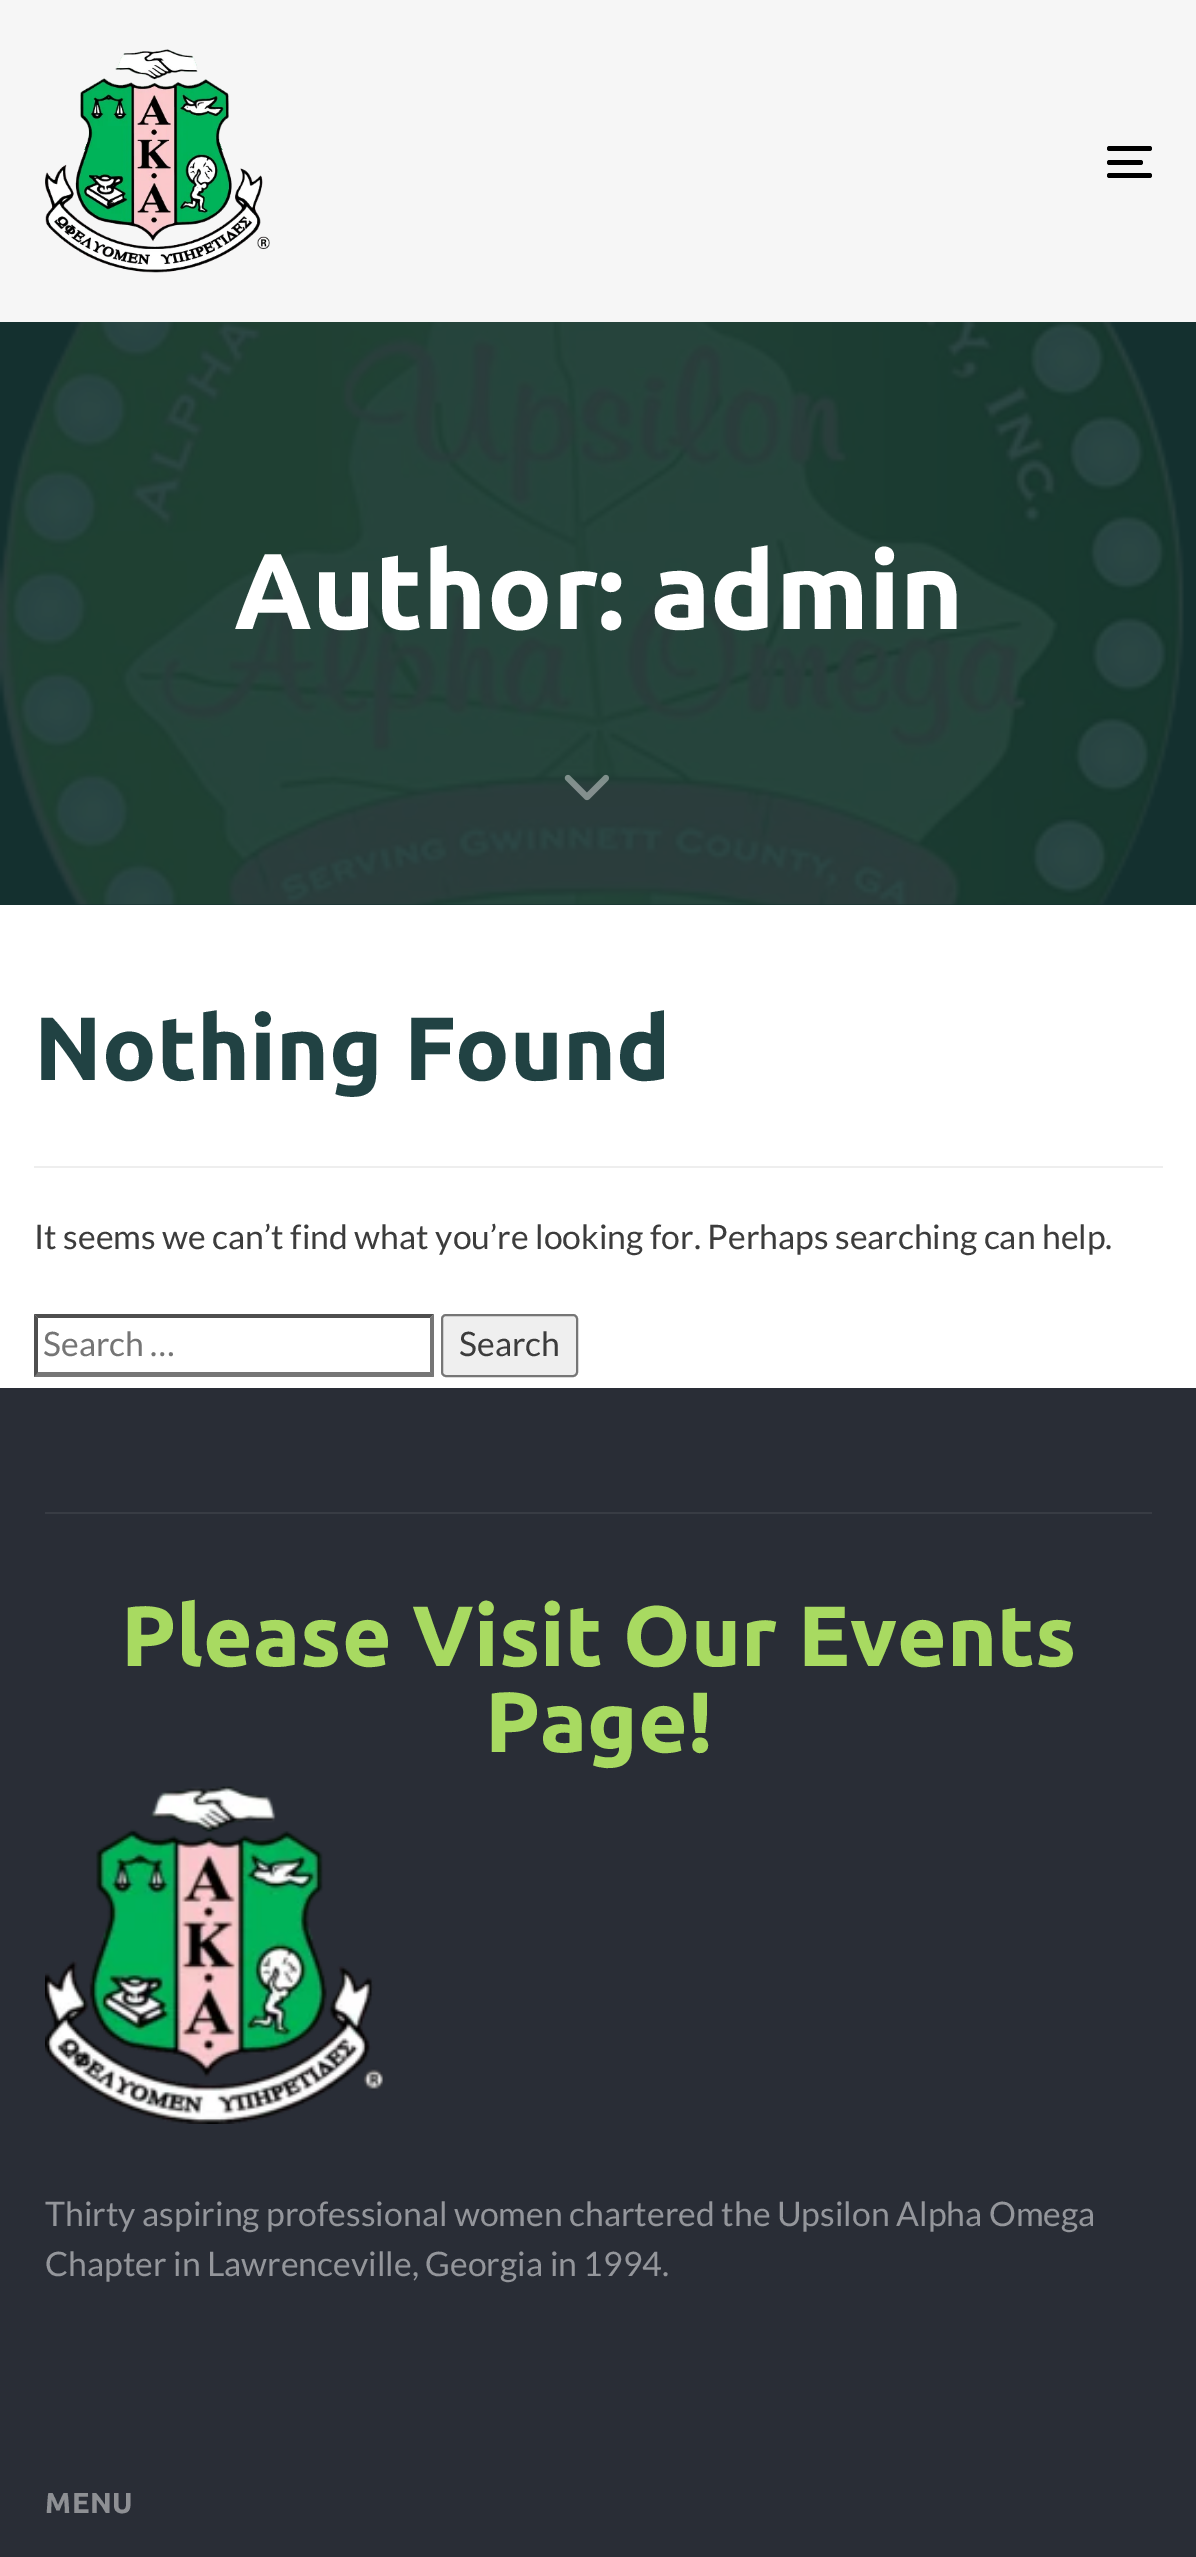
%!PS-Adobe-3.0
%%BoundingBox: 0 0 1196 2557
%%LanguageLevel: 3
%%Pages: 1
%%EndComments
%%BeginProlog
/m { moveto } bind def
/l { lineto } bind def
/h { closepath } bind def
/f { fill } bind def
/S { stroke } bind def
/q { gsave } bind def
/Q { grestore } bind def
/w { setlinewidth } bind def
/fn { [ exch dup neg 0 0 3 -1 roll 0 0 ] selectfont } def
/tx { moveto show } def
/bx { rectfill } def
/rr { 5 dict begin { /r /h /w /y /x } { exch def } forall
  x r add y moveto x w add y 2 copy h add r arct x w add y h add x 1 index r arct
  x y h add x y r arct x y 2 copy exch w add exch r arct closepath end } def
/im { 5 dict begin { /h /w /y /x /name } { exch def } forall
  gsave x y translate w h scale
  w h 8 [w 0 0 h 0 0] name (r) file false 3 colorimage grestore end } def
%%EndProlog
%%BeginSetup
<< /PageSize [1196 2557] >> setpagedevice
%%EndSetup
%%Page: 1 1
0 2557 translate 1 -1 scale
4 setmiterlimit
1 setgray
0 0 1196 2557 bx
0.965 setgray
0 0 1196 322 bx
(image0.raw) 45 49 225 224 im
0 setgray
1107 146 45 5 2.5 rr f
1107 160 36 5 2.5 rr f
1107 173 45 5 2.5 rr f
0.078 0.188 0.184 setrgbcolor
0 322 1196 583 bx
(image1.raw) 0 322 1184 583 im
/Ubuntu-Bold 108 fn
1 setgray
(Author: admin) 234 629 tx
(image2.raw) 564 774 45 27 im
0.933 setgray
34 1166 1129 2 bx
/Ubuntu-Bold 90 fn
0.129 0.259 0.263 setrgbcolor
(Nothing Found) 34 1080 tx
/Lato-Regular 33.75 fn
0.235 setgray
(It seems we can’t find what you’re looking for. Perhaps searching can help.) 34 1249 tx
0.31 setgray
34 1314 m 434 1314 l 430 1318 l 38 1318 l h f
0.463 setgray
434 1314 m 434 1377 l 430 1372 l 430 1318 l h f
434 1377 m 34 1377 l 38 1372 l 430 1372 l h f
0.31 setgray
34 1377 m 34 1314 l 38 1318 l 38 1372 l h f
0.459 setgray
(Search …) 43 1356 tx
0.937 setgray
442 1315 135 61 4 rr q f Q
0.463 setgray
2 w
S
0.235 setgray
(Search) 459 1356 tx
0.161 0.176 0.212 setrgbcolor
0 1388 1196 1169 bx
0.22 0.235 0.267 setrgbcolor
45 1512 1107 2 bx
/Ubuntu-Bold 85.5 fn
0.659 0.855 0.38 setrgbcolor
(Please Visit Our Events) 121 1666 tx
(Page!) 485 1752 tx
(image3.raw) 45 1786 338 338 im
/Lato-Regular 33.75 fn
0.58 0.588 0.608 setrgbcolor
(Thirty aspiring professional women chartered the Upsilon Alpha Omega) 45 2226 tx
(Chapter in Lawrenceville, Georgia in 1994.) 45 2276 tx
/Ubuntu-Bold 29 fn
0.557 0.565 0.58 setrgbcolor
45 2513 m 0.5 0 (MENU) ashow
showpage
%%EOF
